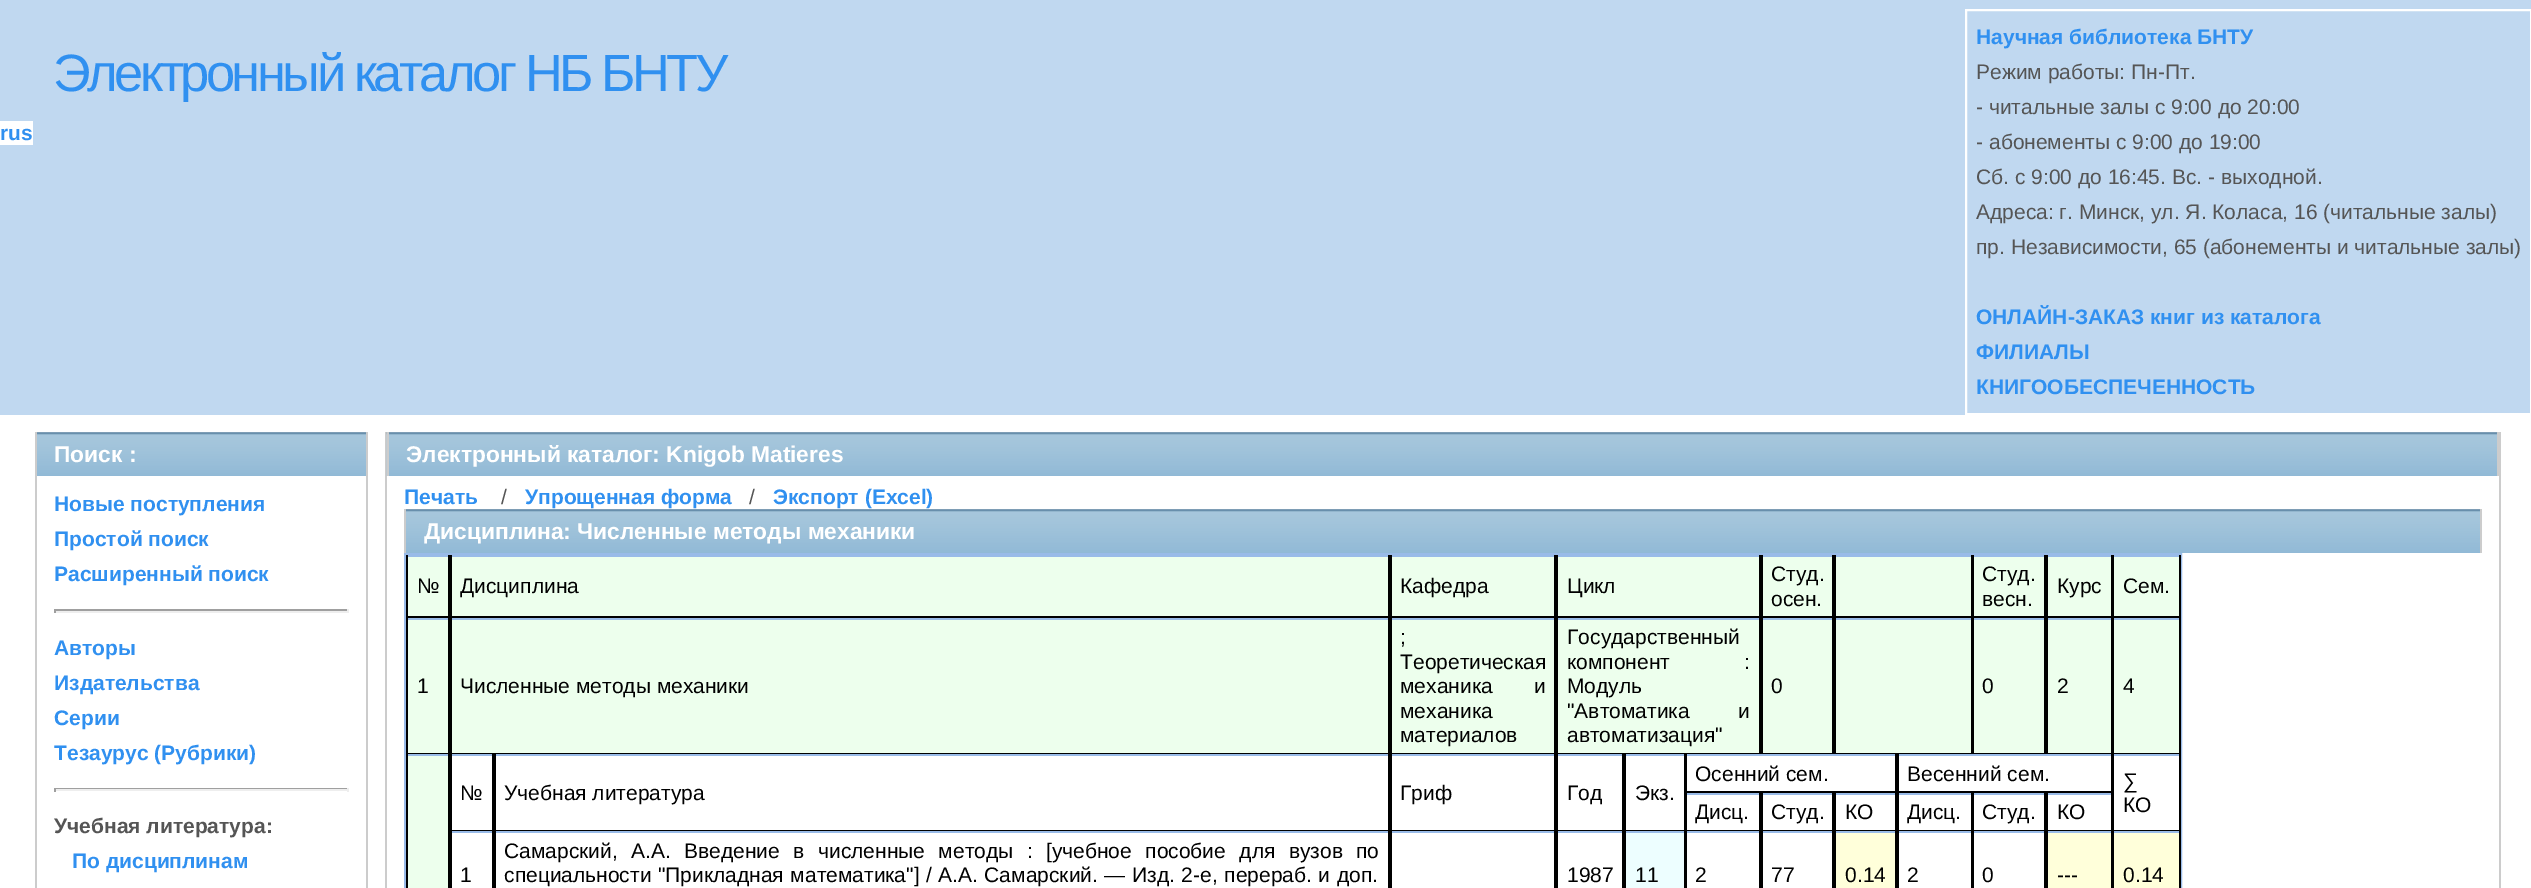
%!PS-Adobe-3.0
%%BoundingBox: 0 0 2531 888
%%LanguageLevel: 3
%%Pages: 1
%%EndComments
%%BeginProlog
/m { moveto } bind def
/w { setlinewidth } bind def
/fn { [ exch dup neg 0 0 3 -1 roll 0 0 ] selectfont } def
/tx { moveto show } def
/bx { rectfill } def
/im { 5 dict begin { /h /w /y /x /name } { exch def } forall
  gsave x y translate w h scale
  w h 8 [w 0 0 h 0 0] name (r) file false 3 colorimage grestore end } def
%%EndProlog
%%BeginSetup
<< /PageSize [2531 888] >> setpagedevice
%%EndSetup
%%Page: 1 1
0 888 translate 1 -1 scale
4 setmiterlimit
1 setgray
0 0 2531 888 bx
0.753 0.847 0.941 setrgbcolor
0 0 2531 415 bx
/LiberationSans-Regular 52.5 fn
0.188 0.565 0.941 setrgbcolor
53 91 m -3.5 0 (Электронный каталог НБ БНТУ) ashow
1 setgray
0 121 33 24 bx
/LiberationSans-Bold 21 fn
0.188 0.565 0.941 setrgbcolor
(rus) 0 140 tx
1 setgray
2 w
1966 10 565 404 rectstroke
0.188 0.565 0.941 setrgbcolor
(Научная библиотека БНТУ) 1976 44 tx
/LiberationSans-Regular 21 fn
0.333 setgray
(Режим работы: Пн-Пт.) 1976 79 tx
(- читальные залы с 9:00 до 20:00) 1976 114 tx
(- абонементы с 9:00 до 19:00) 1976 149 tx
(Сб. с 9:00 до 16:45. Вс. - выходной.) 1976 184 tx
(Адреса: г. Минск, ул. Я. Коласа, 16 \(читальные залы\)) 1976 219 tx
(пр. Независимости, 65 \(абонементы и читальные залы\)) 1976 254 tx
/LiberationSans-Bold 21 fn
0.188 0.565 0.941 setrgbcolor
(ОНЛАЙН-ЗАКАЗ книг из каталога) 1976 324 tx
(ФИЛИАЛЫ) 1976 359 tx
(КНИГООБЕСПЕЧЕННОСТЬ) 1976 394 tx
(image0.raw) 37 432 329 44 im
0.8 setgray
366 432 2 456 bx
35 432 2 456 bx
/LiberationSans-Bold 22.75 fn
1 setgray
(Поиск :) 54 462 tx
/LiberationSans-Bold 21 fn
0.188 0.565 0.941 setrgbcolor
(Новые поступления) 54 511 tx
(Простой поиск) 54 546 tx
(Расширенный поиск) 54 581 tx
0.624 setgray
54 609 294 2 bx
0.933 setgray
347 609 2 4 bx
54 611 294 2 bx
0.624 setgray
54 609 2 4 bx
0.188 0.565 0.941 setrgbcolor
(Авторы) 54 655 tx
(Издательства) 54 690 tx
(Серии) 54 725 tx
(Тезаурус \(Рубрики\)) 54 760 tx
0.624 setgray
54 788 294 1 bx
0.933 setgray
347 788 2 4 bx
54 789 294 2 bx
0.624 setgray
54 788 2 4 bx
0.333 setgray
(Учебная литература:) 54 833 tx
0.188 0.565 0.941 setrgbcolor
(По дисциплинам) 72 868 tx
0.8 setgray
2499 432 2 456 bx
385 432 2 456 bx
(image1.raw) 386 432 2111 44 im
2497 432 2 44 bx
387 432 2 44 bx
/LiberationSans-Bold 22.75 fn
1 setgray
(Электронный каталог: Knigob Matieres) 406 462 tx
/LiberationSans-Bold 21 fn
0.188 0.565 0.941 setrgbcolor
(Печать) 404 504 tx
/LiberationSans-Regular 21 fn
0.333 setgray
(/) 501 504 tx
/LiberationSans-Bold 21 fn
0.188 0.565 0.941 setrgbcolor
(Упрощенная форма) 525 504 tx
/LiberationSans-Regular 21 fn
0.333 setgray
(/) 749 504 tx
/LiberationSans-Bold 21 fn
0.188 0.565 0.941 setrgbcolor
(Экспорт \(Excel\)) 773 504 tx
(image2.raw) 406 509 2074 44 im
0.8 setgray
2480 509 2 44 bx
404 509 2 44 bx
/LiberationSans-Bold 22.75 fn
1 setgray
(Дисциплина: Численные методы механики) 424 539 tx
0.6 0.733 0.91 setrgbcolor
405 554 1776 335 rectstroke
0.929 1 0.929 setrgbcolor
408 557 1771 59 bx
0.6 0.733 0.91 setrgbcolor
406 555 1775 2 bx
0 setgray
448 555 2 63 bx
406 616 44 2 bx
406 555 2 63 bx
/LiberationSans-Regular 21 fn
(№) 417 593 tx
1388 555 2 63 bx
450 616 940 2 bx
450 555 2 63 bx
(Дисциплина) 460 593 tx
1554 555 2 63 bx
1390 616 166 2 bx
1390 555 2 63 bx
(Кафедра) 1400 593 tx
1759 555 2 63 bx
1556 616 205 2 bx
1556 555 2 63 bx
(Цикл) 1567 593 tx
1832 555 2 63 bx
1761 616 73 2 bx
1761 555 2 63 bx
(Студ.) 1771 581 tx
(осен.) 1771 606 tx
1971 555 1 63 bx
1834 616 138 2 bx
1834 555 2 63 bx
2044 555 2 63 bx
1972 616 74 2 bx
1972 555 2 63 bx
(Студ.) 1982 581 tx
(весн.) 1982 606 tx
2111 555 1 63 bx
2046 616 66 2 bx
2046 555 2 63 bx
(Курс) 2057 593 tx
2179 555 2 63 bx
2112 616 69 2 bx
2112 555 2 63 bx
(Сем.) 2123 593 tx
0.929 1 0.929 setrgbcolor
408 620 1771 133 bx
0.6 0.733 0.91 setrgbcolor
406 618 1775 2 bx
0 setgray
448 618 2 136 bx
406 753 44 1 bx
406 618 2 136 bx
(1) 417 693 tx
1388 618 2 136 bx
450 753 940 1 bx
450 618 2 136 bx
(Численные методы механики) 460 693 tx
1554 618 2 136 bx
1390 753 166 1 bx
1390 618 2 136 bx
(;) 1400 644 tx
(Теоретическая) 1400 669 tx
1400 693 m 36 0 32 (механика и) widthshow
(механика) 1400 718 tx
(материалов) 1400 742 tx
1759 618 2 136 bx
1556 753 205 1 bx
1556 618 2 136 bx
(Государственный) 1567 644 tx
1567 669 m 68 0 32 (компонент :) widthshow
(Модуль) 1567 693 tx
1567 718 m 43 0 32 ("Автоматика и) widthshow
(автоматизация") 1567 742 tx
1832 618 2 136 bx
1761 753 73 1 bx
1761 618 2 136 bx
(0) 1771 693 tx
1971 618 1 136 bx
1834 753 138 1 bx
1834 618 2 136 bx
2044 618 2 136 bx
1972 753 74 1 bx
1972 618 2 136 bx
(0) 1982 693 tx
2111 618 1 136 bx
2046 753 66 1 bx
2046 618 2 136 bx
(2) 2057 693 tx
2179 618 2 136 bx
2112 753 69 1 bx
2112 618 2 136 bx
(4) 2123 693 tx
0.929 1 0.929 setrgbcolor
408 756 40 132 bx
0.6 0.733 0.91 setrgbcolor
406 754 1775 2 bx
0 setgray
448 754 2 134 bx
406 754 2 134 bx
492 754 2 77 bx
450 830 44 1 bx
450 754 2 77 bx
(№) 460 800 tx
1388 754 2 77 bx
494 830 896 1 bx
494 754 2 77 bx
(Учебная литература) 504 800 tx
1554 754 2 77 bx
1390 830 166 1 bx
1390 754 2 77 bx
(Гриф) 1400 800 tx
1622 754 2 77 bx
1556 830 68 1 bx
1556 754 2 77 bx
(Год) 1567 800 tx
1684 754 1 77 bx
1624 830 61 1 bx
1624 754 2 77 bx
(Экз.) 1635 800 tx
1895 754 2 39 bx
1685 791 212 2 bx
1685 754 2 39 bx
(Осенний сем.) 1695 781 tx
2111 754 1 39 bx
1897 791 215 2 bx
1897 754 2 39 bx
(Весенний сем.) 1907 781 tx
2179 754 2 77 bx
2112 830 69 1 bx
2112 754 2 77 bx
(∑) 2123 788 tx
(КО) 2123 812 tx
0.6 0.733 0.91 setrgbcolor
1685 793 427 2 bx
0 setgray
1759 793 2 38 bx
1685 830 76 1 bx
1685 793 2 38 bx
(Дисц.) 1695 819 tx
1832 793 2 38 bx
1761 830 73 1 bx
1761 793 2 38 bx
(Студ.) 1771 819 tx
1895 793 2 38 bx
1834 830 63 1 bx
1834 793 2 38 bx
(КО) 1845 819 tx
1971 793 1 38 bx
1897 830 75 1 bx
1897 793 2 38 bx
(Дисц.) 1907 819 tx
2044 793 2 38 bx
1972 830 74 1 bx
1972 793 2 38 bx
(Студ.) 1982 819 tx
2111 793 1 38 bx
2046 830 66 1 bx
2046 793 2 38 bx
(КО) 2057 819 tx
0.6 0.733 0.91 setrgbcolor
450 831 1731 2 bx
0 setgray
492 831 4 57 bx
450 831 2 57 bx
(1) 460 882 tx
1388 831 4 57 bx
504 858 m 7.6 0 32 (Самарский, А.А. Введение в численные методы : [учебное пособие для вузов по) widthshow
504 882 m 0.75 0 32 (специальности "Прикладная математика"] /) widthshow
938 882 m 0.75 0 32 (А.А. Самарский. — Изд. 2-е, перераб. и доп.) widthshow
1554 831 4 57 bx
1622 831 4 57 bx
(1987) 1567 882 tx
0.929 0.996 1 setrgbcolor
1626 833 58 55 bx
0 setgray
1684 831 3 57 bx
(11) 1635 882 tx
1759 831 4 57 bx
(2) 1695 882 tx
1832 831 4 57 bx
(77) 1771 882 tx
1 1 0.855 setrgbcolor
1836 833 59 55 bx
0 setgray
1895 831 4 57 bx
(0.14) 1845 882 tx
1971 831 3 57 bx
(2) 1907 882 tx
2044 831 4 57 bx
(0) 1982 882 tx
1 1 0.855 setrgbcolor
2048 833 63 55 bx
0 setgray
2111 831 3 57 bx
(---) 2057 882 tx
1 1 0.855 setrgbcolor
2114 833 65 55 bx
0 setgray
2179 831 2 57 bx
(0.14) 2123 882 tx
showpage
%%EOF
